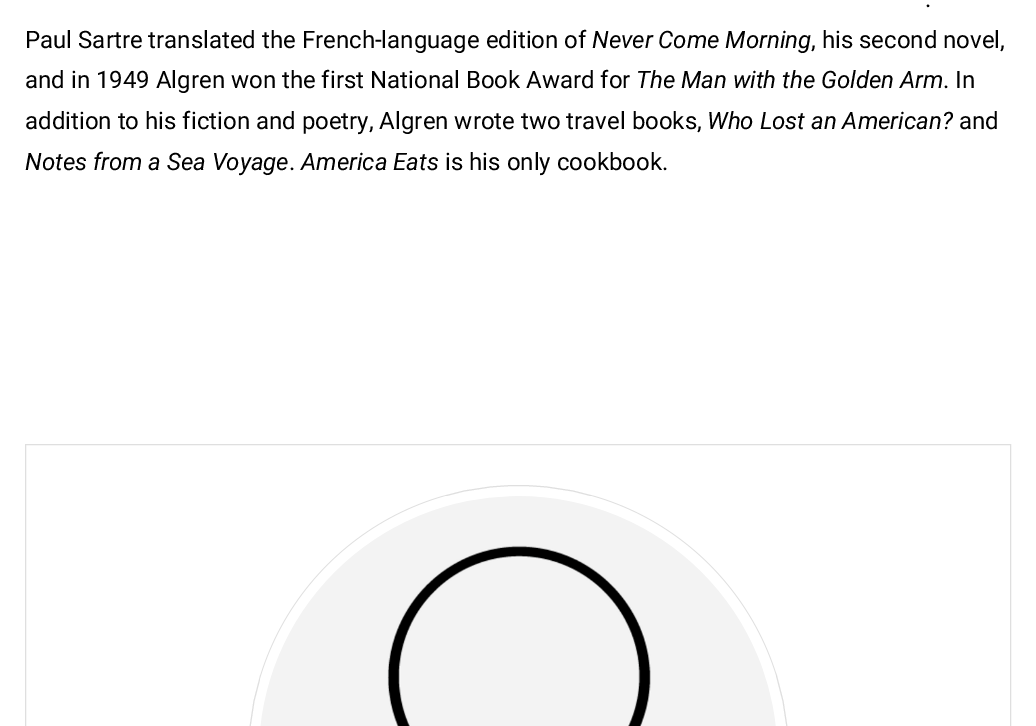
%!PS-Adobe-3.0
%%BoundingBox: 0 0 1036 726
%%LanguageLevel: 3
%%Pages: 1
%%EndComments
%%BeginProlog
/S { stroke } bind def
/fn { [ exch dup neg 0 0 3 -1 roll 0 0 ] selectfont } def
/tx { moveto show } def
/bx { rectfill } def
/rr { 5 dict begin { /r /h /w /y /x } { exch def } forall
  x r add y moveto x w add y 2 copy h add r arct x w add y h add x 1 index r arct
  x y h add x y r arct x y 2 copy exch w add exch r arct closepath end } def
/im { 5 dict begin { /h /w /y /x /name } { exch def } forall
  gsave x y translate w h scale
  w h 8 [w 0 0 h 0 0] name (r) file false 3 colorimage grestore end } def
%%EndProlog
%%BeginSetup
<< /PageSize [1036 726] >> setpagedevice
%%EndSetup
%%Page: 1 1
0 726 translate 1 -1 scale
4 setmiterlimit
1 setgray
0 0 1036 726 bx
/Roboto-Regular 24 fn
0 setgray
(.) 925 7 tx
(Paul Sartre translated the French-language edition of) 25 48 tx
/Roboto-Italic 24 fn
(Never Come Morning) 592 48 tx
/Roboto-Regular 24 fn
(, his second novel,) 811 48 tx
(and in 1949 Algren won the first National Book Award for) 25 88 tx
/Roboto-Italic 24 fn
(The Man with the Golden Arm) 636 88 tx
/Roboto-Regular 24 fn
(. In) 943 88 tx
(addition to his fiction and poetry, Algren wrote two travel books,) 25 129 tx
/Roboto-Italic 24 fn
(Who Lost an American?) 707 129 tx
/Roboto-Regular 24 fn
(and) 959 129 tx
/Roboto-Italic 24 fn
(Notes from a Sea Voyage) 25 170 tx
/Roboto-Regular 24 fn
(.) 289 170 tx
/Roboto-Italic 24 fn
(America Eats) 301 170 tx
/Roboto-Regular 24 fn
(is his only cookbook.) 445 170 tx
0.875 setgray
25.5 444.5 985 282 rectstroke
248.5 485.5 540 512 270 rr S
(image0.raw) 260 496 516 230 im
showpage
%%EOF
